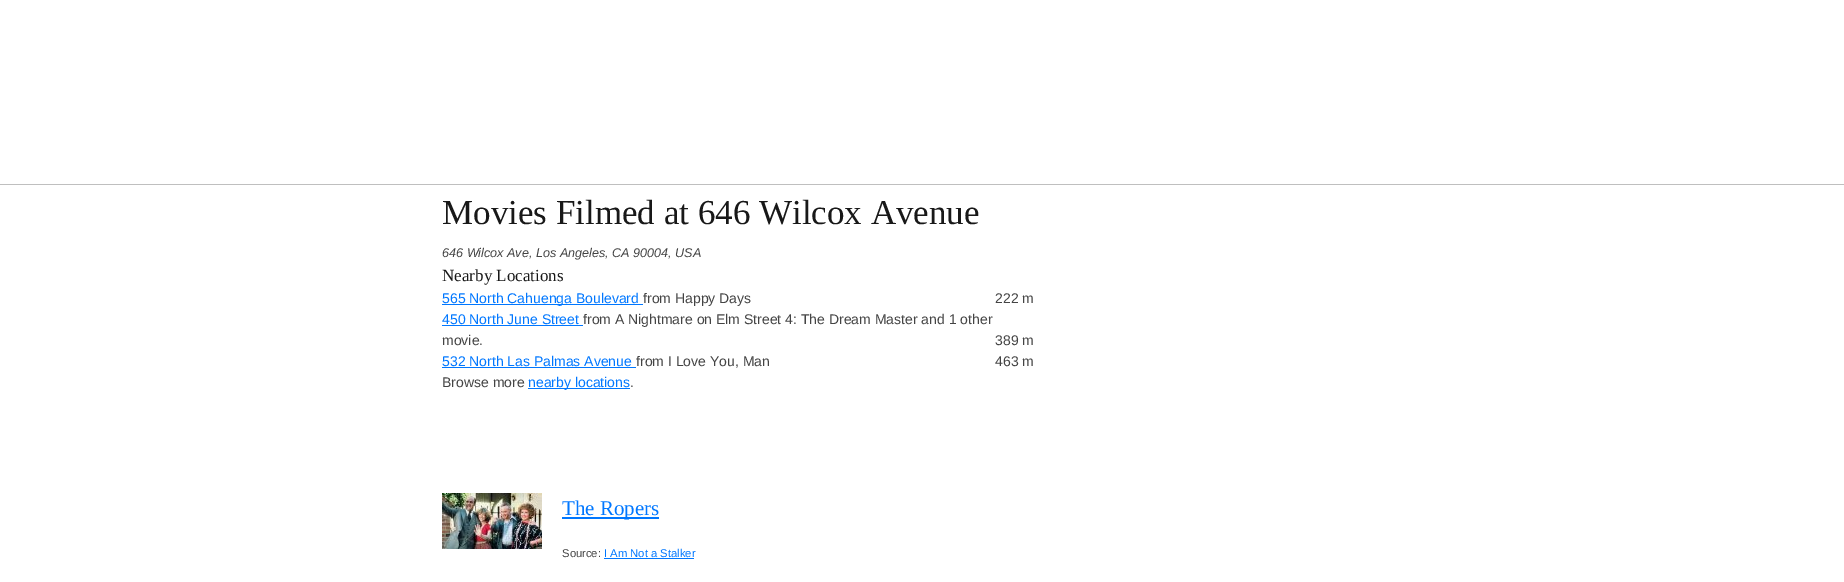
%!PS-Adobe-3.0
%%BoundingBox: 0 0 1844 582
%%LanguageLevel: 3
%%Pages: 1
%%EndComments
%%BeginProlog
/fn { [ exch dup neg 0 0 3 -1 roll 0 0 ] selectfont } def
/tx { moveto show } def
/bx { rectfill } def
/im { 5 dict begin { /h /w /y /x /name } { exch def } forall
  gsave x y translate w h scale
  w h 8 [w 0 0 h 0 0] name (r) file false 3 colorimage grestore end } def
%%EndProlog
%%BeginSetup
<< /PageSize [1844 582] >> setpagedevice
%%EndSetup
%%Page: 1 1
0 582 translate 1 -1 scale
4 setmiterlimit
1 setgray
0 0 1844 582 bx
0.749 setgray
0 184 1844 1 bx
/LiberationSerif-Regular 35 fn
0.094 setgray
(Movies Filmed at 646 Wilcox Avenue) 442 224 tx
/LiberationSans-Italic 12.6 fn
0.267 setgray
(646 Wilcox Ave, Los Angeles, CA 90004, USA) 442 257 tx
/LiberationSerif-Regular 17 fn
0.094 setgray
(Nearby Locations) 442 281 tx
0 0.467 1 setrgbcolor
442 304 201 1 bx
/LiberationSans-Regular 14 fn
(565 North Cahuenga Boulevard) 442 303 tx
0.267 setgray
(from Happy Days) 643 303 tx
(222 m) 995 303 tx
0 0.467 1 setrgbcolor
(450 North June Street) 442 324 tx
442 325 141 1 bx
0.267 setgray
(from A Nightmare on Elm Street 4: The Dream Master and 1 other) 583 324 tx
(movie.) 442 345 tx
(389 m) 995 345 tx
0 0.467 1 setrgbcolor
(532 North Las Palmas Avenue) 442 366 tx
442 367 194 1 bx
0.267 setgray
(from I Love You, Man) 636 366 tx
(463 m) 995 366 tx
(Browse more) 442 387 tx
0 0.467 1 setrgbcolor
528 388 102 1 bx
(nearby locations) 528 387 tx
0.267 setgray
(.) 630 387 tx
(image0.raw) 442 493 100 56 im
0 0.467 1 setrgbcolor
562 517 97 2 bx
/LiberationSerif-Regular 21 fn
(The Ropers) 562 515 tx
/LiberationSans-Regular 11.25 fn
0.267 setgray
(Source:) 562 557 tx
0 0.467 1 setrgbcolor
(I Am Not a Stalker) 604 557 tx
604 558 90 1 bx
showpage
%%EOF
